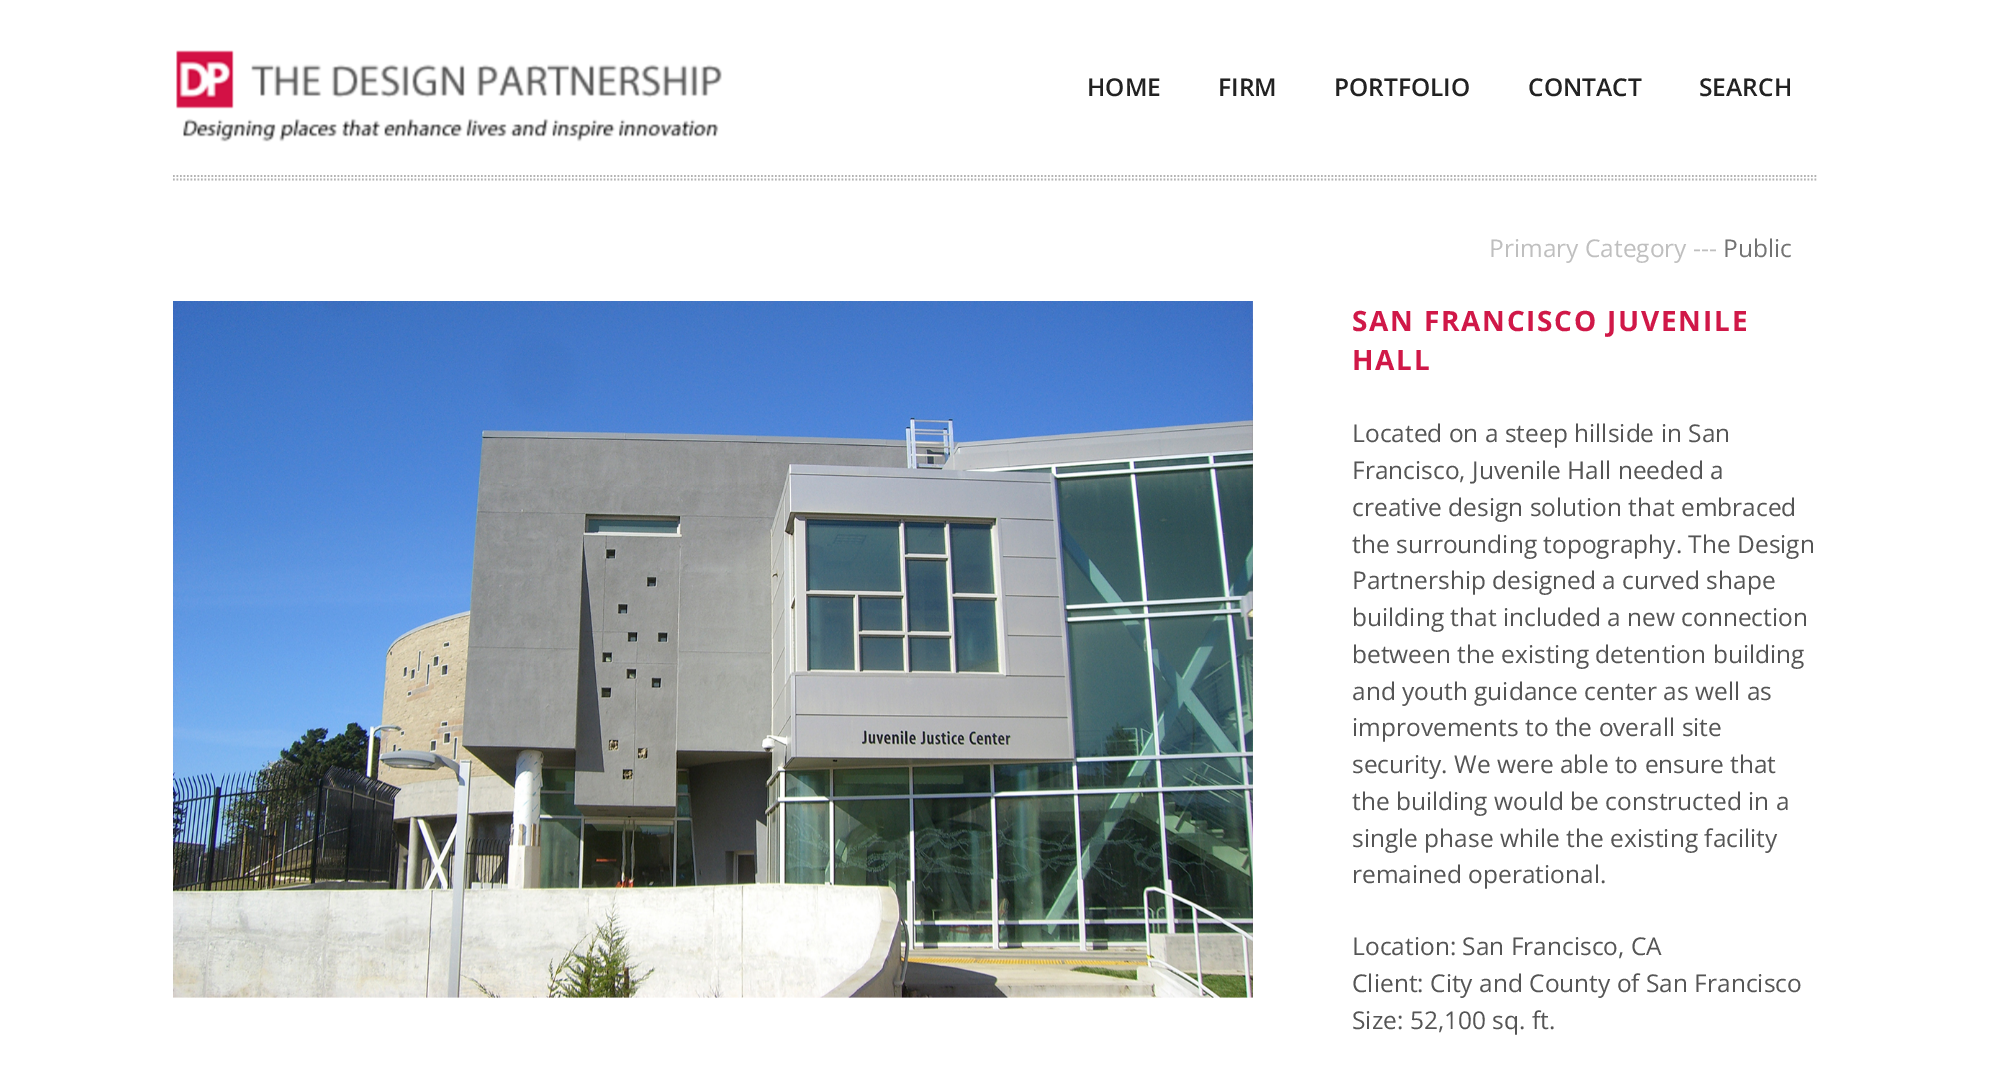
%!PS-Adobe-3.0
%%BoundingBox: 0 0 1991 1069
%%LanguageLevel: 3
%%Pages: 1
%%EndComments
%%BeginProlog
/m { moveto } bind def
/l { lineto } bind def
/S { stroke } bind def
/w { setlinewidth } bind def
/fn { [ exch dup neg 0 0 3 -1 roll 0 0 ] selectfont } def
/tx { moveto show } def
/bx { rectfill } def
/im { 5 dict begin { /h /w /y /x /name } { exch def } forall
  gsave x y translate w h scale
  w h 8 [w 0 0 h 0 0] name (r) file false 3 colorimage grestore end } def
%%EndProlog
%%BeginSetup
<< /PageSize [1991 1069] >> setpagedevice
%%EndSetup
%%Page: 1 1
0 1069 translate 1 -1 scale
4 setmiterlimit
1 setgray
0 0 1991 1069 bx
(image0.raw) 176 50 546 92 im
0.702 setgray
1.8 w
[1.75 1.75] 0 setdash
173 176 m 1818 176 l S
/OpenSans-SemiBold 24.5 fn
0.133 setgray
(HOME) 1087 96 tx
(FIRM) 1218 96 tx
(PORTFOLIO) 1334 96 tx
(CONTACT) 1528 96 tx
(SEARCH) 1699 96 tx
0.702 setgray
173 179.5 m 1818 179.5 l S
/OpenSans-Regular 24.5 fn
0.749 setgray
(Primary Category ---) 1489 257 tx
0.451 setgray
(Public) 1723 257 tx
(image1.raw) 173 301 1080 697 im
(image2.raw) 1252 301 1 686 im
/OpenSans-Bold 28 fn
0.816 0.094 0.282 setrgbcolor
1352 331 m 1.75 0 (SAN FRANCISCO JUVENILE) ashow
1352 370 m 1.75 0 (HALL) ashow
/OpenSans-Regular 24.5 fn
0.333 setgray
(Located on a steep hillside in San) 1352 442 tx
(Francisco, Juvenile Hall needed a) 1352 479 tx
(creative design solution that embraced) 1352 516 tx
(the surrounding topography. The Design) 1352 553 tx
(Partnership designed a curved shape) 1352 589 tx
(building that included a new connection) 1352 626 tx
(between the existing detention building) 1352 663 tx
(and youth guidance center as well as) 1352 700 tx
(improvements to the overall site) 1352 736 tx
(security. We were able to ensure that) 1352 773 tx
(the building would be constructed in a) 1352 810 tx
(single phase while the existing facility) 1352 847 tx
(remained operational.) 1352 883 tx
(Location: San Francisco, CA) 1352 955 tx
(Client: City and County of San Francisco) 1352 992 tx
(Size: 52,100 sq. ft.) 1352 1029 tx
showpage
%%EOF
